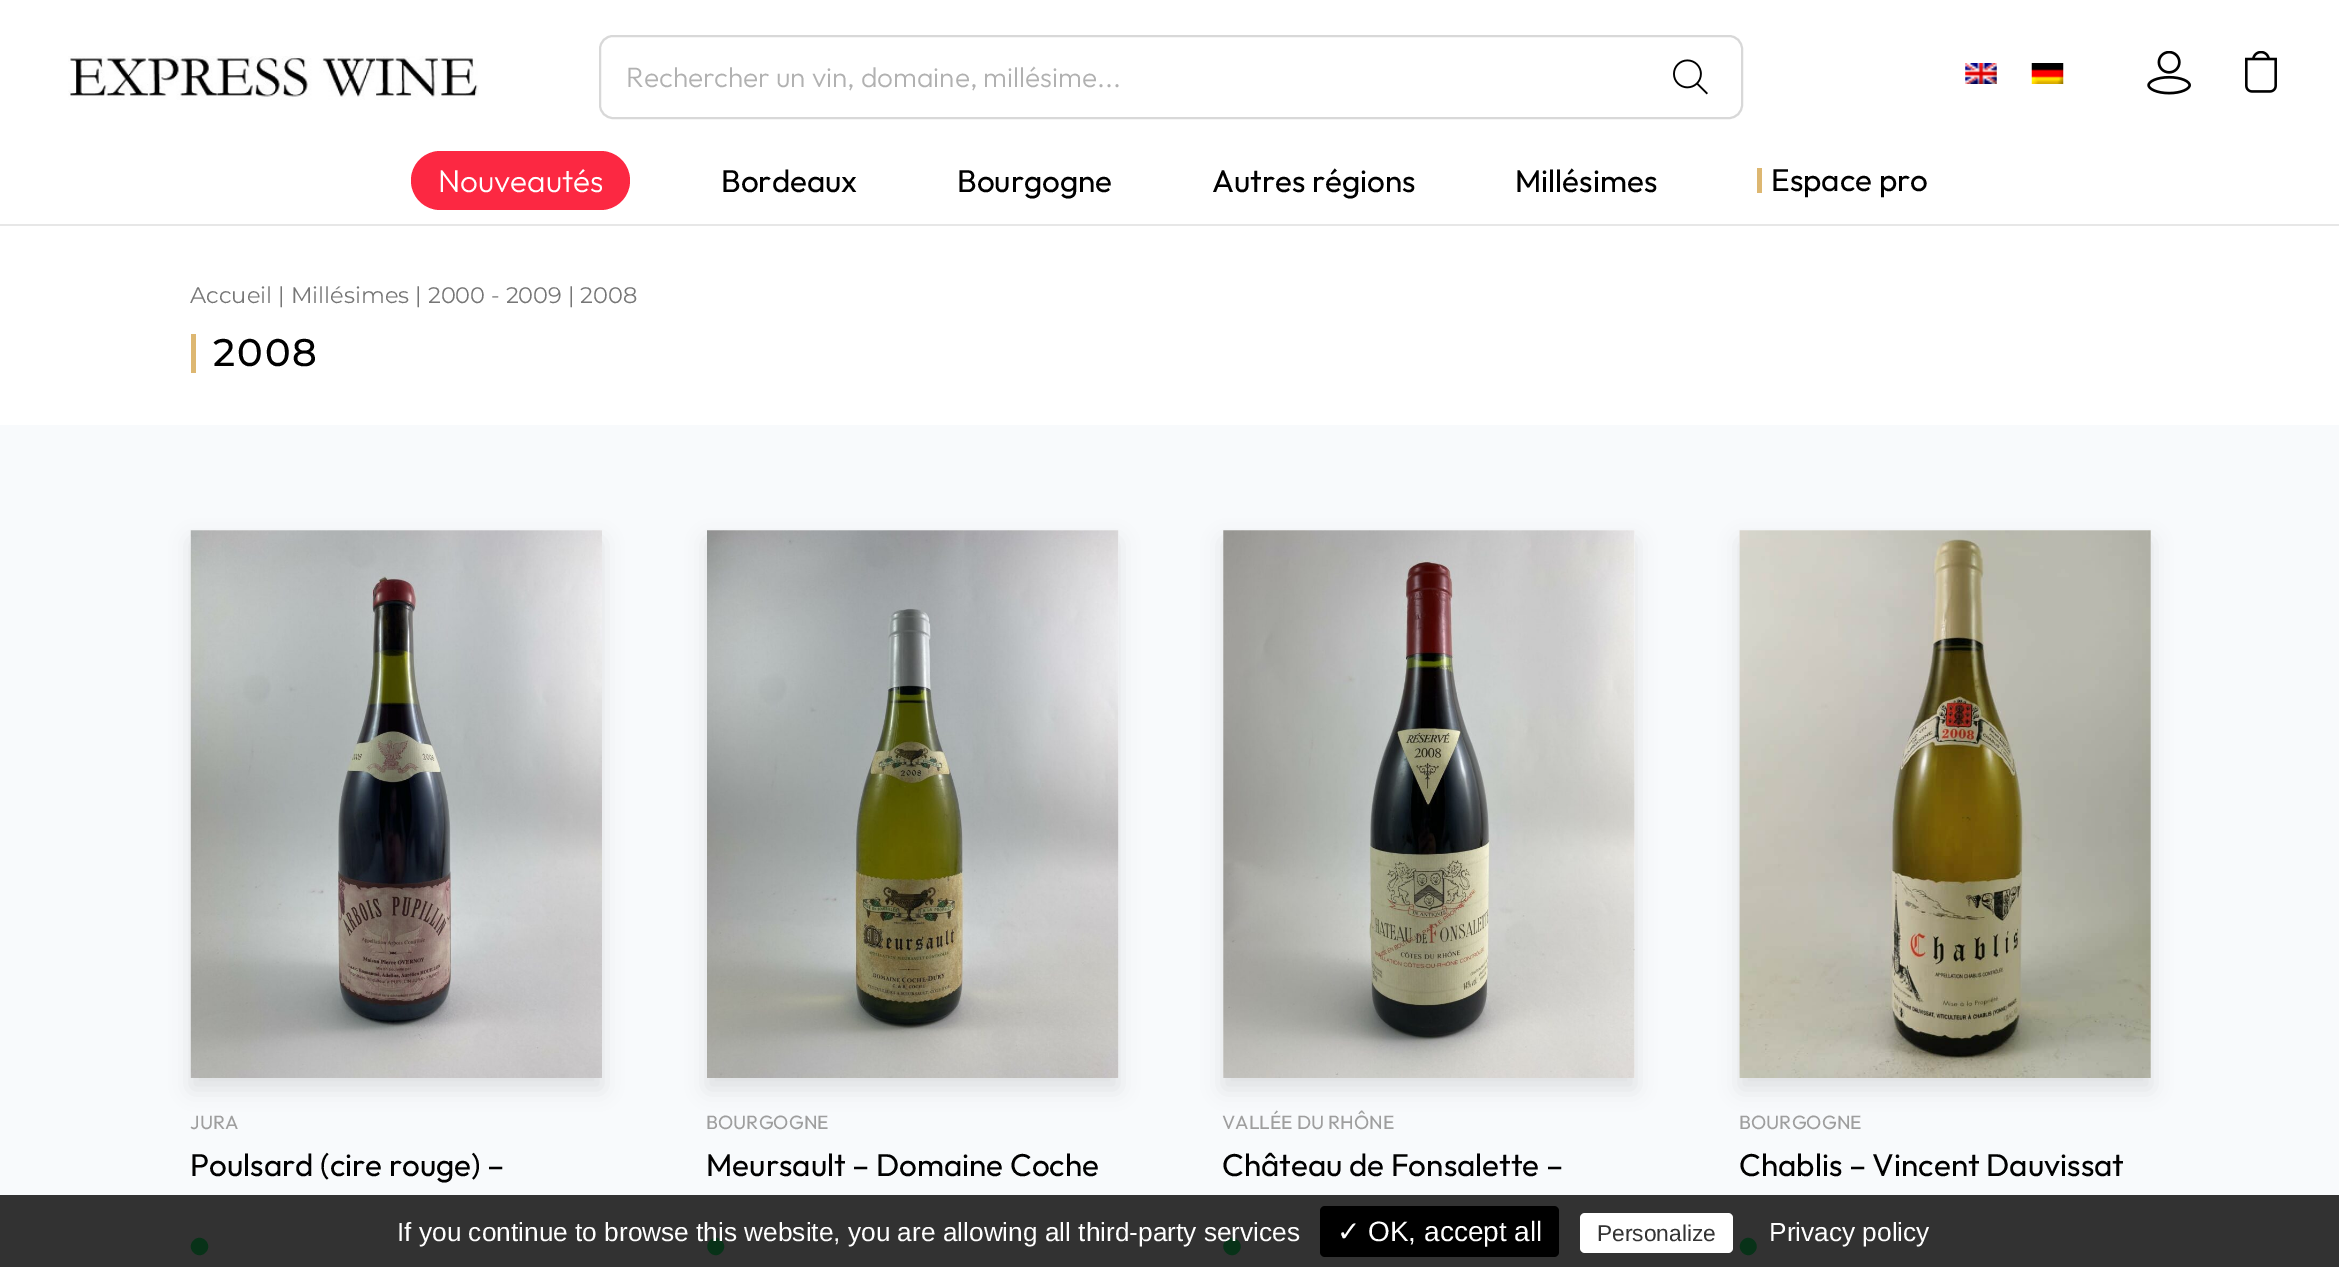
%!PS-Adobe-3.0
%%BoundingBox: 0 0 2339 1267
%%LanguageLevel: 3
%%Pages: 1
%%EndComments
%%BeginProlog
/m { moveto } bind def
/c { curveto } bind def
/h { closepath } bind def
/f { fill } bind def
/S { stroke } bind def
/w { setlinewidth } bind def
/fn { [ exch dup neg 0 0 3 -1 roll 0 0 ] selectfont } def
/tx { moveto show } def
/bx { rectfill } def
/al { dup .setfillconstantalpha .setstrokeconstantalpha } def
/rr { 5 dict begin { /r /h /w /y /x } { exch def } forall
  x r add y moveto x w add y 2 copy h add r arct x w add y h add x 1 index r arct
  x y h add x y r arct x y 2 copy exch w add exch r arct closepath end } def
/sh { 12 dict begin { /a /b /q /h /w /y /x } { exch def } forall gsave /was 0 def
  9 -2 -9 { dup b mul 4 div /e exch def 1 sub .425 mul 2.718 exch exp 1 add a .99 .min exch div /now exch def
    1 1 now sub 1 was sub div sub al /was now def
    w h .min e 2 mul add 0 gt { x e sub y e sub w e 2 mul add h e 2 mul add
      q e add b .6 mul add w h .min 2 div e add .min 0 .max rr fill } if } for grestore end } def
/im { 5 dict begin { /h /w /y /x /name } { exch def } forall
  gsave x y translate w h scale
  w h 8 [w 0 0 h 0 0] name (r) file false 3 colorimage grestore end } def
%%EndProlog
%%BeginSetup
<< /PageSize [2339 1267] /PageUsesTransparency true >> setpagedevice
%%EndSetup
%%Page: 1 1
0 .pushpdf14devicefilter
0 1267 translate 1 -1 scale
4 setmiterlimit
1 setgray
0 0 2339 1267 bx
0.906 setgray
0 224 2339 2 bx
(image0.raw) 68 56 411 44 im
0.847 setgray
2 w
600 36 1142 82 13 rr S
/Outfit-Light 28 fn
0.694 setgray
(Rechercher un vin, domaine, millésime...) 626 87 tx
(image1.raw) 1673 59 35 36 im
(image2.raw) 1965 63 32 21 im
(image3.raw) 2031 63 33 21 im
(image4.raw) 2147 51 44 44 im
(image5.raw) 2245 51 32 42 im
0.988 0.157 0.259 setrgbcolor
411 151 219 59 29.5 rr f
/Outfit-Light 31.5 fn
1 setgray
(Nouveautés) 438 192 tx
/Outfit-Regular 31.5 fn
0 setgray
(Bordeaux) 721 192 tx
(Bourgogne) 957 192 tx
(Autres régions) 1212 192 tx
(Millésimes) 1515 192 tx
0.867 0.718 0.443 setrgbcolor
1757 168 5 25 bx
0 setgray
(Espace pro) 1771 191 tx
/Montserrat-Regular 22.5 fn
0.463 setgray
(Accueil | Millésimes | 2000 - 2009 | 2008) 190 303 tx
0.867 0.718 0.443 setrgbcolor
191 334 5 39 bx
/Montserrat-Medium 38.5 fn
0 setgray
213 366 m 2 0 (2008) ashow
0.973 0.98 0.988 setrgbcolor
0 425 2339 842 bx
0.569 0.576 0.596 setrgbcolor
191 541 411 548 0 10.5 0.25 sh
(image6.raw) 190 530 412 548 im
/Outfit-Regular 19.25 fn
0.62 setgray
(JURA) 190 1129 tx
/Outfit-Regular 31.5 fn
0 setgray
(Poulsard \(cire rouge\) –) 190 1176 tx
0.157 0.988 0.471 setrgbcolor
193.5 1240.5 m 201.5 1232.5 213.5 1244.5 205.5 1252.5 c 197.5 1260.5 185.5 1248.5 193.5 1240.5 c h f
0.569 0.576 0.596 setrgbcolor
707 541 411 548 0 10.5 0.25 sh
(image7.raw) 707 530 412 548 im
/Outfit-Regular 19.25 fn
0.62 setgray
(BOURGOGNE) 706 1129 tx
/Outfit-Regular 31.5 fn
0 setgray
(Meursault – Domaine Coche) 706 1176 tx
0.157 0.988 0.471 setrgbcolor
710 1240.5 m 717.5 1232.5 729.5 1244.5 721.5 1252.5 c 714 1260.5 702 1248.5 710 1240.5 c h f
1 setgray
1223 530 412 548 bx
0.569 0.576 0.596 setrgbcolor
1223 541 412 548 0 10.5 0.25 sh
(image8.raw) 1223 530 412 548 im
/Outfit-Regular 19.25 fn
0.62 setgray
(VALLÉE DU RHÔNE) 1222 1129 tx
/Outfit-Regular 31.5 fn
0 setgray
(Château de Fonsalette –) 1222 1176 tx
0.157 0.988 0.471 setrgbcolor
1226 1240.5 m 1234 1232.5 1246 1244.5 1238 1252.5 c 1230 1260.5 1218 1248.5 1226 1240.5 c h f
1 setgray
1740 530 411 548 bx
0.569 0.576 0.596 setrgbcolor
1740 541 411 548 0 10.5 0.25 sh
(image9.raw) 1739 530 412 548 im
/Outfit-Regular 19.25 fn
0.62 setgray
(BOURGOGNE) 1739 1129 tx
/Outfit-Regular 31.5 fn
0 setgray
(Chablis – Vincent Dauvissat) 1739 1176 tx
0.157 0.988 0.471 setrgbcolor
1742.5 1240.5 m 1750 1232.5 1762 1244.5 1754 1252.5 c 1746.5 1260.5 1734.5 1248.5 1742.5 1240.5 c h f
0.8 al
0 setgray
0 1195 2339 72 bx
/LiberationSans-Regular 26.25 fn
1 al
1 setgray
(If you continue to browse this website, you are allowing all third-party services) 397 1241 tx
0 setgray
1320 1206 239 51 5 rr f
/DejaVuSans-Regular 28 fn
1 setgray
(✓) 1337 1241 tx
/LiberationSans-Regular 28 fn
(OK, accept all) 1368 1241 tx
1580 1213 153 40 5 rr f
/LiberationSans-Regular 22.75 fn
0.2 setgray
(Personalize) 1597 1241 tx
/LiberationSans-Regular 26.25 fn
1 setgray
(Privacy policy) 1769 1241 tx
.poppdf14devicefilter showpage
%%EOF
